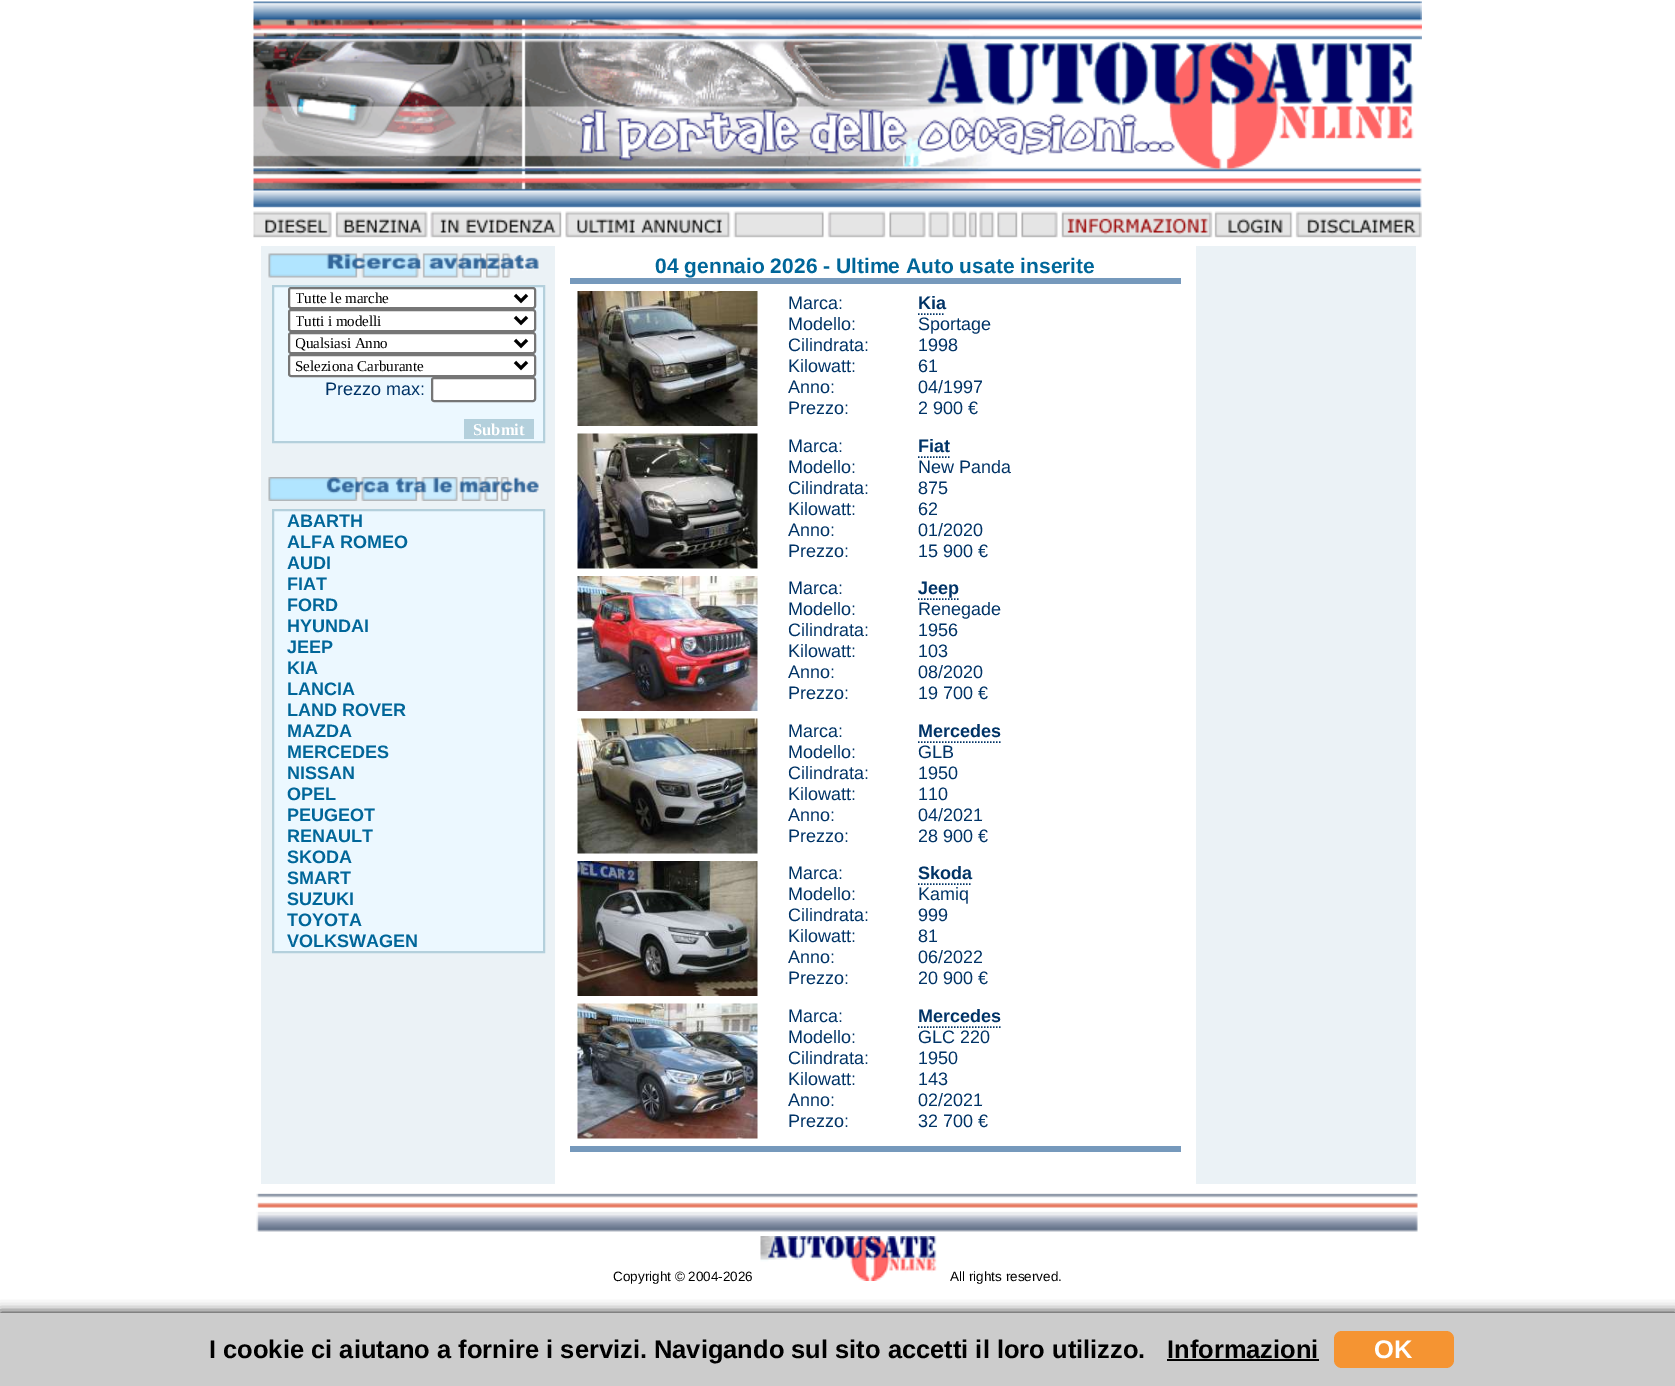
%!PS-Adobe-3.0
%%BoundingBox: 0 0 1675 1386
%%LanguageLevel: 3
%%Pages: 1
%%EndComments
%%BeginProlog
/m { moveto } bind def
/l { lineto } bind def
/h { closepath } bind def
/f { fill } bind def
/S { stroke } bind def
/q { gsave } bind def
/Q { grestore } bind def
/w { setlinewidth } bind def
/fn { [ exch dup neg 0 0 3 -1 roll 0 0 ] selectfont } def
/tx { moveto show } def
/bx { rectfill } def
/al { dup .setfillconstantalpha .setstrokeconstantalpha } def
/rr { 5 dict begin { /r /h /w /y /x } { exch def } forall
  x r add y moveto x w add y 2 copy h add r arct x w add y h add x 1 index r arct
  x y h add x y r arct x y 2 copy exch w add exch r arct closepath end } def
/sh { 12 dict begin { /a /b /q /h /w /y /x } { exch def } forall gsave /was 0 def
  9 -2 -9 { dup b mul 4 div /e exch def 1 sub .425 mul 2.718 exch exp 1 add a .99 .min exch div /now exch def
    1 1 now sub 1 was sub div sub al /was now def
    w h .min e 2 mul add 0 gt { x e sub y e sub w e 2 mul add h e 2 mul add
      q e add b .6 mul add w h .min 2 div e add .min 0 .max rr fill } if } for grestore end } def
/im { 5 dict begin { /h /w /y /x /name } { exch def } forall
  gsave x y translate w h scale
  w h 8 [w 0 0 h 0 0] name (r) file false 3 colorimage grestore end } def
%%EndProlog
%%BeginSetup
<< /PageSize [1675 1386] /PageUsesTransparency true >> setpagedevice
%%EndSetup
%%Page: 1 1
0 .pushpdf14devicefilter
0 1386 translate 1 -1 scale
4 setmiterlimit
1 setgray
0 0 1675 1386 bx
(image0.raw) 253 1 1169 207 im
(image1.raw) 253 211 79 27 im
(image2.raw) 335 211 93 27 im
(image3.raw) 430 211 132 27 im
(image4.raw) 565 211 166 27 im
(image5.raw) 733 211 325 27 im
(image6.raw) 1061 211 152 27 im
(image7.raw) 1214 211 79 27 im
(image8.raw) 1295 211 127 27 im
0.922 0.949 0.965 setrgbcolor
261 246 294 938 bx
(image9.raw) 268 253 271 25 im
0.925 0.973 1 setrgbcolor
273 286 m 544 286 l 544 442 l 273 442 l h q f Q
0.706 0.816 0.863 setrgbcolor
2 w
S
1 setgray
289 288 246 20 2 rr q f Q
0.463 setgray
S
0 setgray
3 w
515 295 m 521 301 l 527 295 l S
q
296 288 214 20 rectclip
/LiberationSerif-Regular 15 fn
(Tutte le marche) 295 303 tx
Q
1 setgray
289 310 246 21 2 rr q f Q
0.463 setgray
2 w
S
0 setgray
3 w
515 317 m 521 323 l 527 317 l S
q
296 311 214 19 rectclip
/LiberationSerif-Regular 15 fn
(Tutti i modelli) 295 326 tx
Q
1 setgray
289 333 246 20 2 rr q f Q
0.463 setgray
2 w
S
0 setgray
3 w
515 340 m 521 346 l 527 340 l S
q
296 333 214 20 rectclip
/LiberationSerif-Regular 15 fn
(Qualsiasi Anno) 295 348 tx
Q
1 setgray
289 355 246 21 2 rr q f Q
0.463 setgray
2 w
S
0 setgray
3 w
515 362 m 521 368 l 527 362 l S
q
296 356 214 19 rectclip
/LiberationSerif-Regular 15 fn
(Seleziona Carburante) 295 371 tx
Q
/LiberationSans-Regular 18 fn
0 0.2 0.4 setrgbcolor
(Prezzo max:) 325 395 tx
1 setgray
432 378 103 23 2 rr q f Q
0.463 setgray
2 w
S
0.706 0.816 0.863 setrgbcolor
464 419 70 20 bx
/LiberationSerif-Bold 16.5 fn
1 setgray
(Submit) 473 435 tx
(image10.raw) 268 477 271 24 im
0.925 0.973 1 setrgbcolor
273 510 m 544 510 l 544 952 l 273 952 l h q f Q
0.706 0.816 0.863 setrgbcolor
S
/LiberationSans-Bold 18 fn
0 0.4 0.6 setrgbcolor
(ABARTH) 287 527 tx
(ALFA ROMEO) 287 548 tx
(AUDI) 287 569 tx
(FIAT) 287 590 tx
(FORD) 287 611 tx
(HYUNDAI) 287 632 tx
(JEEP) 287 653 tx
(KIA) 287 674 tx
(LANCIA) 287 695 tx
(LAND ROVER) 287 716 tx
(MAZDA) 287 737 tx
(MERCEDES) 287 758 tx
(NISSAN) 287 779 tx
(OPEL) 287 800 tx
(PEUGEOT) 287 821 tx
(RENAULT) 287 842 tx
(SKODA) 287 863 tx
(SMART) 287 884 tx
(SUZUKI) 287 905 tx
(TOYOTA) 287 926 tx
(VOLKSWAGEN) 287 947 tx
0.463 0.6 0.737 setrgbcolor
570 278 611 6 bx
/LiberationSans-Bold 21 fn
0 0.4 0.6 setrgbcolor
(04 gennaio 2026 - Ultime Auto usate inserite) 655 273 tx
(image11.raw) 577 291 181 135 im
/LiberationSans-Regular 18 fn
0 0.2 0.4 setrgbcolor
(Marca:) 788 309 tx
(Modello:) 788 330 tx
(Cilindrata:) 788 351 tx
(Kilowatt:) 788 372 tx
(Anno:) 788 393 tx
(Prezzo:) 788 414 tx
/LiberationSans-Bold 18 fn
(Kia) 918 309 tx
1.5 w
[1.5 1.5] 0 setdash
918 314 m 945 314 l S
/LiberationSans-Regular 18 fn
(Sportage) 918 330 tx
(1998) 918 351 tx
(61) 918 372 tx
(04/1997) 918 393 tx
(2 900 €) 918 414 tx
(image12.raw) 577 433 181 136 im
(Marca:) 788 452 tx
(Modello:) 788 473 tx
(Cilindrata:) 788 494 tx
(Kilowatt:) 788 515 tx
(Anno:) 788 536 tx
(Prezzo:) 788 557 tx
/LiberationSans-Bold 18 fn
(Fiat) 918 452 tx
918 457 m 949.5 457 l S
/LiberationSans-Regular 18 fn
(New Panda) 918 473 tx
(875) 918 494 tx
(62) 918 515 tx
(01/2020) 918 536 tx
(15 900 €) 918 557 tx
(image13.raw) 577 576 181 135 im
(Marca:) 788 594 tx
(Modello:) 788 615 tx
(Cilindrata:) 788 636 tx
(Kilowatt:) 788 657 tx
(Anno:) 788 678 tx
(Prezzo:) 788 699 tx
/LiberationSans-Bold 18 fn
(Jeep) 918 594 tx
918 599 m 958.5 599 l S
/LiberationSans-Regular 18 fn
(Renegade) 918 615 tx
(1956) 918 636 tx
(103) 918 657 tx
(08/2020) 918 678 tx
(19 700 €) 918 699 tx
(image14.raw) 577 718 181 136 im
(Marca:) 788 737 tx
(Modello:) 788 758 tx
(Cilindrata:) 788 779 tx
(Kilowatt:) 788 800 tx
(Anno:) 788 821 tx
(Prezzo:) 788 842 tx
/LiberationSans-Bold 18 fn
(Mercedes) 918 737 tx
918 742 m 1000.5 742 l S
/LiberationSans-Regular 18 fn
(GLB) 918 758 tx
(1950) 918 779 tx
(110) 918 800 tx
(04/2021) 918 821 tx
(28 900 €) 918 842 tx
(image15.raw) 577 861 181 135 im
(Marca:) 788 879 tx
(Modello:) 788 900 tx
(Cilindrata:) 788 921 tx
(Kilowatt:) 788 942 tx
(Anno:) 788 963 tx
(Prezzo:) 788 984 tx
/LiberationSans-Bold 18 fn
(Skoda) 918 879 tx
918 884 m 972 884 l S
/LiberationSans-Regular 18 fn
(Kamiq) 918 900 tx
(999) 918 921 tx
(81) 918 942 tx
(06/2022) 918 963 tx
(20 900 €) 918 984 tx
(image16.raw) 577 1003 181 136 im
(Marca:) 788 1022 tx
(Modello:) 788 1043 tx
(Cilindrata:) 788 1064 tx
(Kilowatt:) 788 1085 tx
(Anno:) 788 1106 tx
(Prezzo:) 788 1127 tx
/LiberationSans-Bold 18 fn
(Mercedes) 918 1022 tx
918 1027 m 1000.5 1027 l S
/LiberationSans-Regular 18 fn
(GLC 220) 918 1043 tx
(1950) 918 1064 tx
(143) 918 1085 tx
(02/2021) 918 1106 tx
(32 700 €) 918 1127 tx
0.463 0.6 0.737 setrgbcolor
570 1146 611 6 bx
0.922 0.949 0.965 setrgbcolor
1196 246 220 938 bx
(image17.raw) 256 1193 1162 39 im
/LiberationSans-Regular 13.5 fn
0 setgray
(Copyright © 2004-2026) 613 1281 tx
(image18.raw) 760 1236 177 45 im
(All rights reserved.) 950 1281 tx
0 1313 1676 73 0 6 1 sh
0.8 setgray
0 1313 1675 73 bx
/LiberationSans-Bold 25.5 fn
0 setgray
(I cookie ci aiutano a fornire i servizi. Navigando sul sito accetti il loro utilizzo.) 209 1358 tx
(Informazioni) 1167 1358 tx
1167 1359 152 2 bx
0.961 0.58 0.196 setrgbcolor
1334 1331 120 37 8 rr f
1 setgray
(OK) 1374 1358 tx
.poppdf14devicefilter showpage
%%EOF
